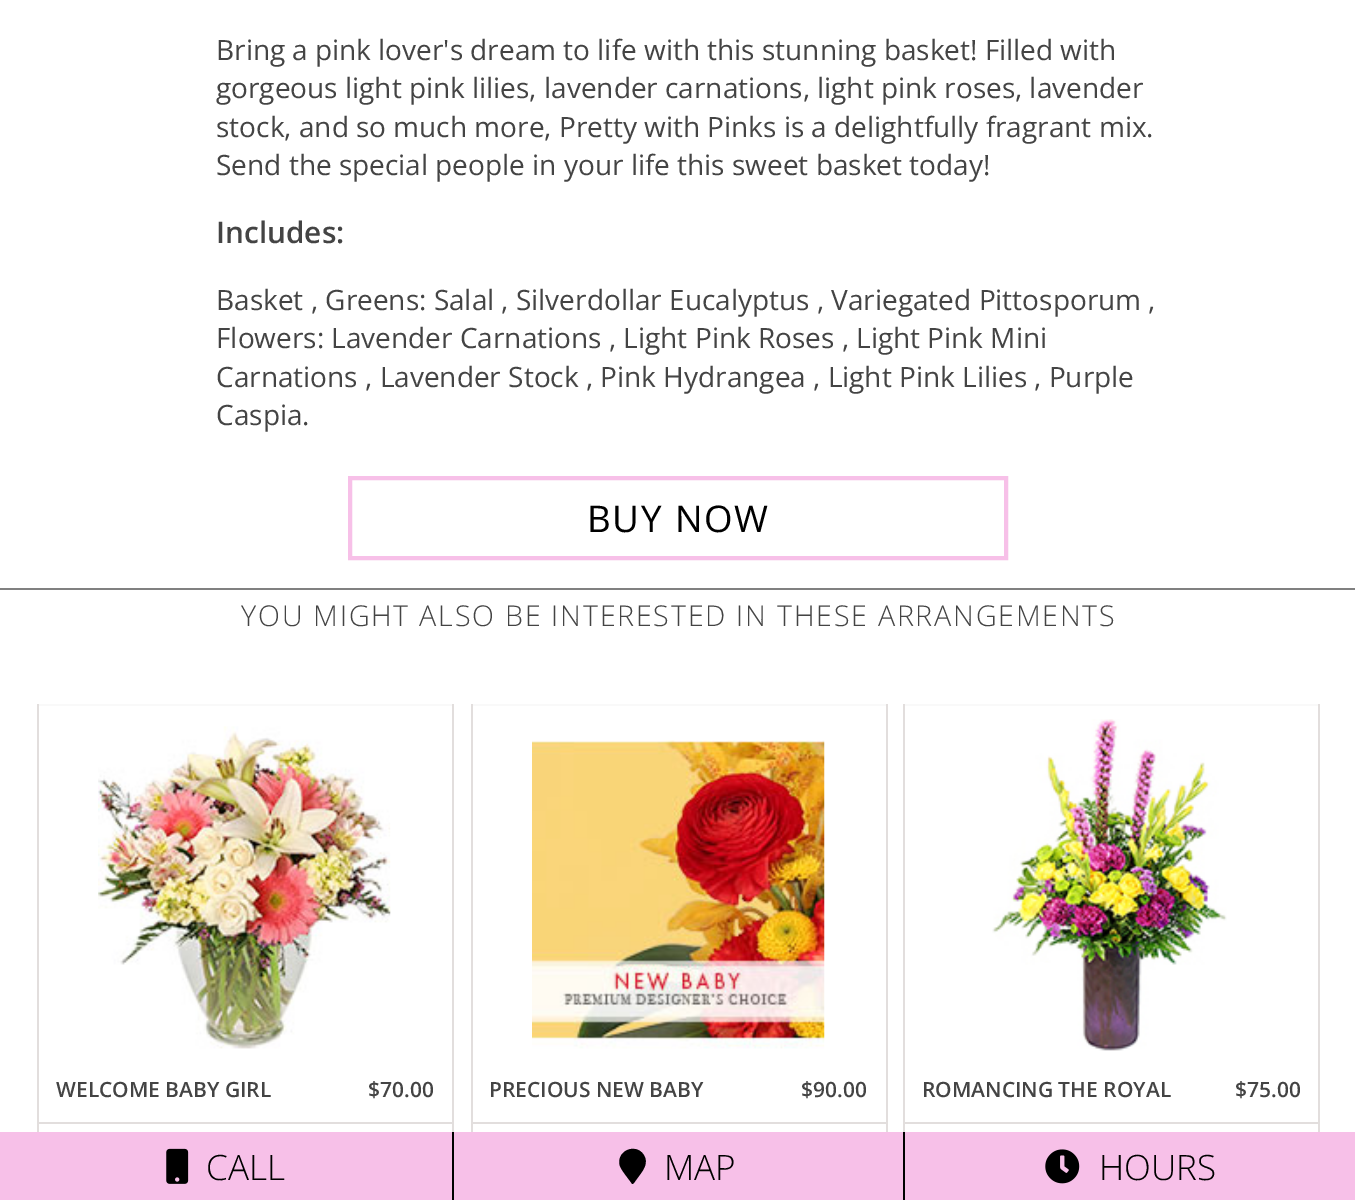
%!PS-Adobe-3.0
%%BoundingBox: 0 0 1355 1200
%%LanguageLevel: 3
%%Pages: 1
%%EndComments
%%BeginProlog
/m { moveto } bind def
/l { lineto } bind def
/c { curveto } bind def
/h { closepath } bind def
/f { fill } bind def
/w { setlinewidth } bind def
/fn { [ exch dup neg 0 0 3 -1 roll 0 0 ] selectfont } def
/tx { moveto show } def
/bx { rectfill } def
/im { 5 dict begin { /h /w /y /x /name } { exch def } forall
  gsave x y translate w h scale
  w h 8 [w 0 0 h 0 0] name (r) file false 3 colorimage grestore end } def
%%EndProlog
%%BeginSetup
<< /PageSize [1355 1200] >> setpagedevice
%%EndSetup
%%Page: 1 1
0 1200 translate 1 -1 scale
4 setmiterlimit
1 setgray
0 0 1355 1200 bx
/OpenSans-Regular 28 fn
0.267 setgray
(Bring a pink lover's dream to life with this stunning basket! Filled with) 216 60 tx
(gorgeous light pink lilies, lavender carnations, light pink roses, lavender) 216 98 tx
(stock, and so much more, Pretty with Pinks is a delightfully fragrant mix.) 216 137 tx
(Send the special people in your life this sweet basket today!) 216 175 tx
/OpenSans-SemiBold 29.75 fn
(Includes:) 216 243 tx
/OpenSans-Regular 28 fn
(Basket , Greens: Salal , Silverdollar Eucalyptus , Variegated Pittosporum ,) 216 310 tx
(Flowers: Lavender Carnations , Light Pink Roses , Light Pink Mini) 216 348 tx
(Carnations , Lavender Stock , Pink Hydrangea , Light Pink Lilies , Purple) 216 387 tx
(Caspia.) 216 425 tx
0.969 0.753 0.91 setrgbcolor
4 w
350 478 656 80 rectstroke
/OpenSans-Regular 36.75 fn
0 setgray
587 532 m 1.75 0 (BUY NOW) ashow
0.502 setgray
0 588 1355 2 bx
/OpenSans-Light 28.65 fn
0.267 setgray
241 626 m 1.75 0 (YOU MIGHT ALSO BE INTERESTED IN THESE ARRANGEMENTS) ashow
0.976 setgray
37 704 416 2 bx
0.886 0.871 0.867 setrgbcolor
452 704 2 428 bx
37 704 2 428 bx
(image0.raw) 98 726 293 323 im
/OpenSans-SemiBold 21 fn
0.267 setgray
(WELCOME BABY GIRL) 56 1097 tx
($70.00) 368 1097 tx
0.886 0.871 0.867 setrgbcolor
39 1122 413 2 bx
0.976 setgray
471 704 416 2 bx
0.886 0.871 0.867 setrgbcolor
886 704 2 428 bx
471 704 2 428 bx
(image1.raw) 532 740 293 309 im
0.267 setgray
(PRECIOUS NEW BABY) 489 1097 tx
($90.00) 801 1097 tx
0.886 0.871 0.867 setrgbcolor
473 1122 413 2 bx
0.976 setgray
903 704 417 2 bx
0.886 0.871 0.867 setrgbcolor
1318 704 2 428 bx
903 704 2 428 bx
(image2.raw) 992 719 235 332 im
0.267 setgray
(ROMANCING THE ROYAL) 922 1097 tx
($75.00) 1235 1097 tx
0.886 0.871 0.867 setrgbcolor
905 1122 413 2 bx
0.969 0.753 0.91 setrgbcolor
0 1132 452 68 bx
(image3.raw) 166 1148 23 36 im
/OpenSans-Light 35 fn
0 setgray
(CALL) 206 1180 tx
0.969 0.753 0.91 setrgbcolor
454 1132 449 68 bx
0 setgray
452 1132 2 68 bx
631.5 1183 m 625.5 1175 l 623.5 1172 620.5 1168.5 619.5 1164.5 c 617 1150.5 635.5 1143 643.5 1154.5 c 649.5 1163.5 642.5 1171 637.5 1178 c 633.5 1183.5 l 632.5 1184 631.5 1184 631.5 1183 c h f
(MAP) 664 1180 tx
0.969 0.753 0.91 setrgbcolor
905 1132 450 68 bx
0 setgray
903 1132 2 68 bx
(image4.raw) 1045 1149 35 35 im
(HOURS) 1099 1180 tx
showpage
%%EOF
